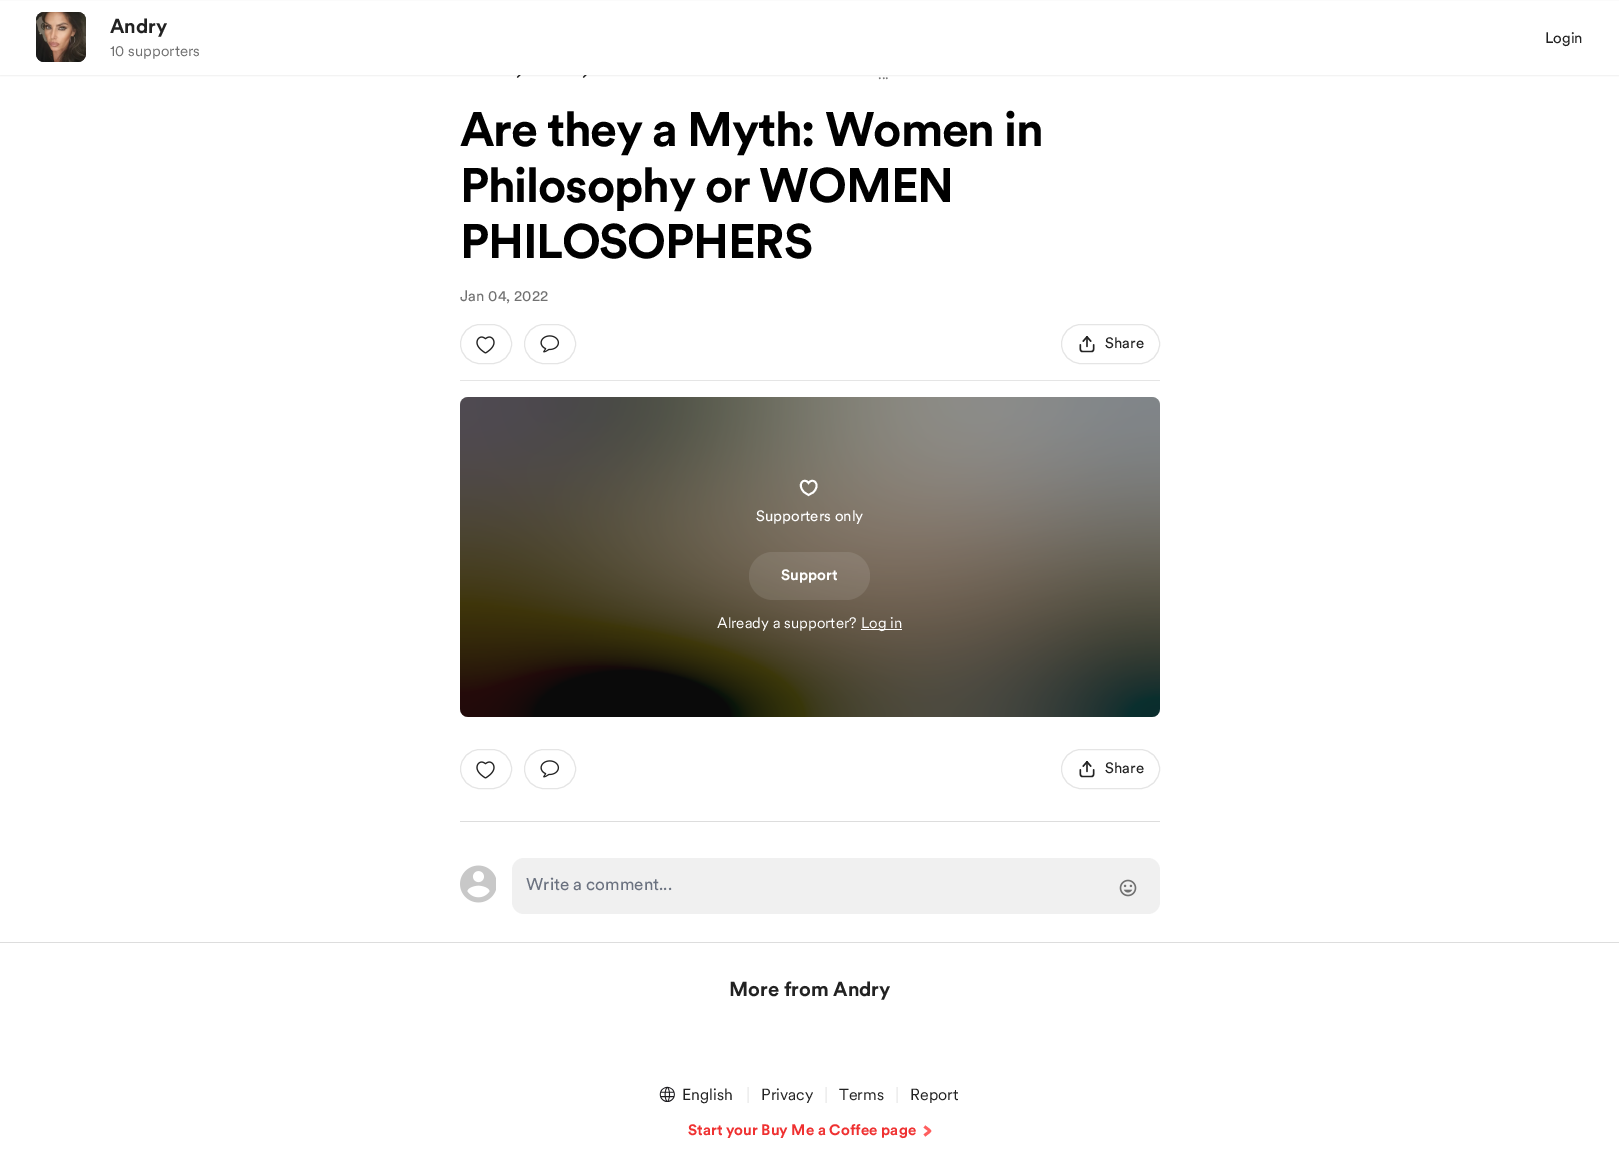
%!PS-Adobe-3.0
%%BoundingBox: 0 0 1619 1151
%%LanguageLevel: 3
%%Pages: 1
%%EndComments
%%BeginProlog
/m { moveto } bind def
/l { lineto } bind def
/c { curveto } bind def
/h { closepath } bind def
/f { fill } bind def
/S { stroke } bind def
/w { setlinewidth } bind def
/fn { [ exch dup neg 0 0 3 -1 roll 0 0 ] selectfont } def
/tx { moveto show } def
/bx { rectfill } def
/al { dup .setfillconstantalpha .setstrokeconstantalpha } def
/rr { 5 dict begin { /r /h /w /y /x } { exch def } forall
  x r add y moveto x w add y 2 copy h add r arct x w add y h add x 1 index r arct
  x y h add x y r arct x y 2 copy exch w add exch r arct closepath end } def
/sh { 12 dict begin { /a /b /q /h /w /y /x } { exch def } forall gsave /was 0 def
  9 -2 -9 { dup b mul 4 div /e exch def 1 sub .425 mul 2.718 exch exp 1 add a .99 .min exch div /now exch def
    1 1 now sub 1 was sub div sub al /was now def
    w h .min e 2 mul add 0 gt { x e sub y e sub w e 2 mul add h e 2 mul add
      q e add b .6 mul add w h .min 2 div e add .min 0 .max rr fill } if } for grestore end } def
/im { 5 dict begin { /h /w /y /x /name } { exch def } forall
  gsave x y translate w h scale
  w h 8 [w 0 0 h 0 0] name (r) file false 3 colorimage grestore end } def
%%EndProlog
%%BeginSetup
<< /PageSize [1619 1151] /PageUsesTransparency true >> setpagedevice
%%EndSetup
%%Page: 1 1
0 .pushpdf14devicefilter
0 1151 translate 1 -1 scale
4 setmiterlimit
1 setgray
0 0 1619 1151 bx
(image2.raw) 516 75 5 3 im
(image2.raw) 582 75 5 3 im
0 setgray
0 1 1619 75 0 0.5 0.06 sh
1 setgray
0 1 1619 74 bx
(image0.raw) 36 12 50 50 im
(image1.raw) 36 12 50 50 im
/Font-Bold 20 fn
0.133 setgray
(Andry) 110 33 tx
/Font-Regular 15 fn
0.443 setgray
(10 supporters) 110 56 tx
/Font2-Regular 15 fn
0.133 setgray
(Login) 1545 43 tx
/Font-Regular 15 fn
0.443 setgray
(...) 878 79 tx
/Font-Bold 48 fn
0 setgray
460 146 m -1.2 0 (Are they a Myth: Women in) ashow
460 202 m -1.2 0 (Philosophy or WOMEN) ashow
460 258 m -1.2 0 (PHILOSOPHERS) ashow
/Font2-Regular 15 fn
0.443 setgray
(Jan 04, 2022) 460 301 tx
0.898 setgray
460 380 700 1 bx
460.5 324.5 51 39 19.5 rr S
(image3.raw) 476 336 19 18 im
524.5 324.5 51 39 19.5 rr S
(image4.raw) 540 335 20 18 im
1061.5 324.5 98 39 19.5 rr S
(image5.raw) 1079 336 16 17 im
0.133 setgray
(Share) 1105 348 tx
(image6.raw) 460 397 700 320 im
0.3 al
460 397 700 320 8 rr f
1 al
1 setgray
1.8 w
808.5 495 m 804.5 492.5 l 796 485 804 476.5 808.5 483 c 813 476.5 821.5 485 813 492.5 c h S
(Supporters only) 756 521 tx
0.1 al
749 552 121 48 24 rr f
/Font-Bold 15 fn
1 al
(Support) 781 580 tx
/Font-Regular 15 fn
(Already a supporter?) 717 628 tx
861 629 41 1 bx
(Log in) 861 628 tx
0.898 setgray
1 w
460.5 749.5 51 39 19.5 rr S
(image3.raw) 476 761 19 18 im
524.5 749.5 51 39 19.5 rr S
(image4.raw) 540 760 20 18 im
1061.5 749.5 98 39 19.5 rr S
(image5.raw) 1079 761 16 17 im
/Font2-Regular 15 fn
0.133 setgray
(Share) 1105 773 tx
0.867 setgray
460 821 700 1 bx
(image7.raw) 460 865 36 38 im
0.941 setgray
512 858 648 56 12 rr f
/Font2-Regular 17 fn
0.42 0.447 0.502 setrgbcolor
(Write a comment...) 526 890 tx
(image8.raw) 1119 879 18 18 im
0.867 setgray
0 942 1619 1 bx
/Font-Bold 20 fn
0.133 setgray
(More from Andry) 729 996 tx
(image9.raw) 659 1086 16 16 im
/Font-Regular 16 fn
(English) 682 1100 tx
0.91 setgray
748 1087 m 748 1103 l S
0.133 setgray
(Privacy) 761 1100 tx
0.91 setgray
826 1087 m 826 1103 l S
0.133 setgray
(Terms) 839 1100 tx
0.91 setgray
897 1087 m 897 1103 l S
0.133 setgray
(Report) 910 1100 tx
/Font-Bold 15 fn
0.937 0.192 0.192 setrgbcolor
(Start your Buy Me a Coffee page) 688 1135 tx
1 0.373 0.373 setrgbcolor
2.7 w
924.5 1126.5 m 931.5 1132.5 931.5 1129.5 924.5 1135.5 c S
.poppdf14devicefilter showpage
%%EOF
